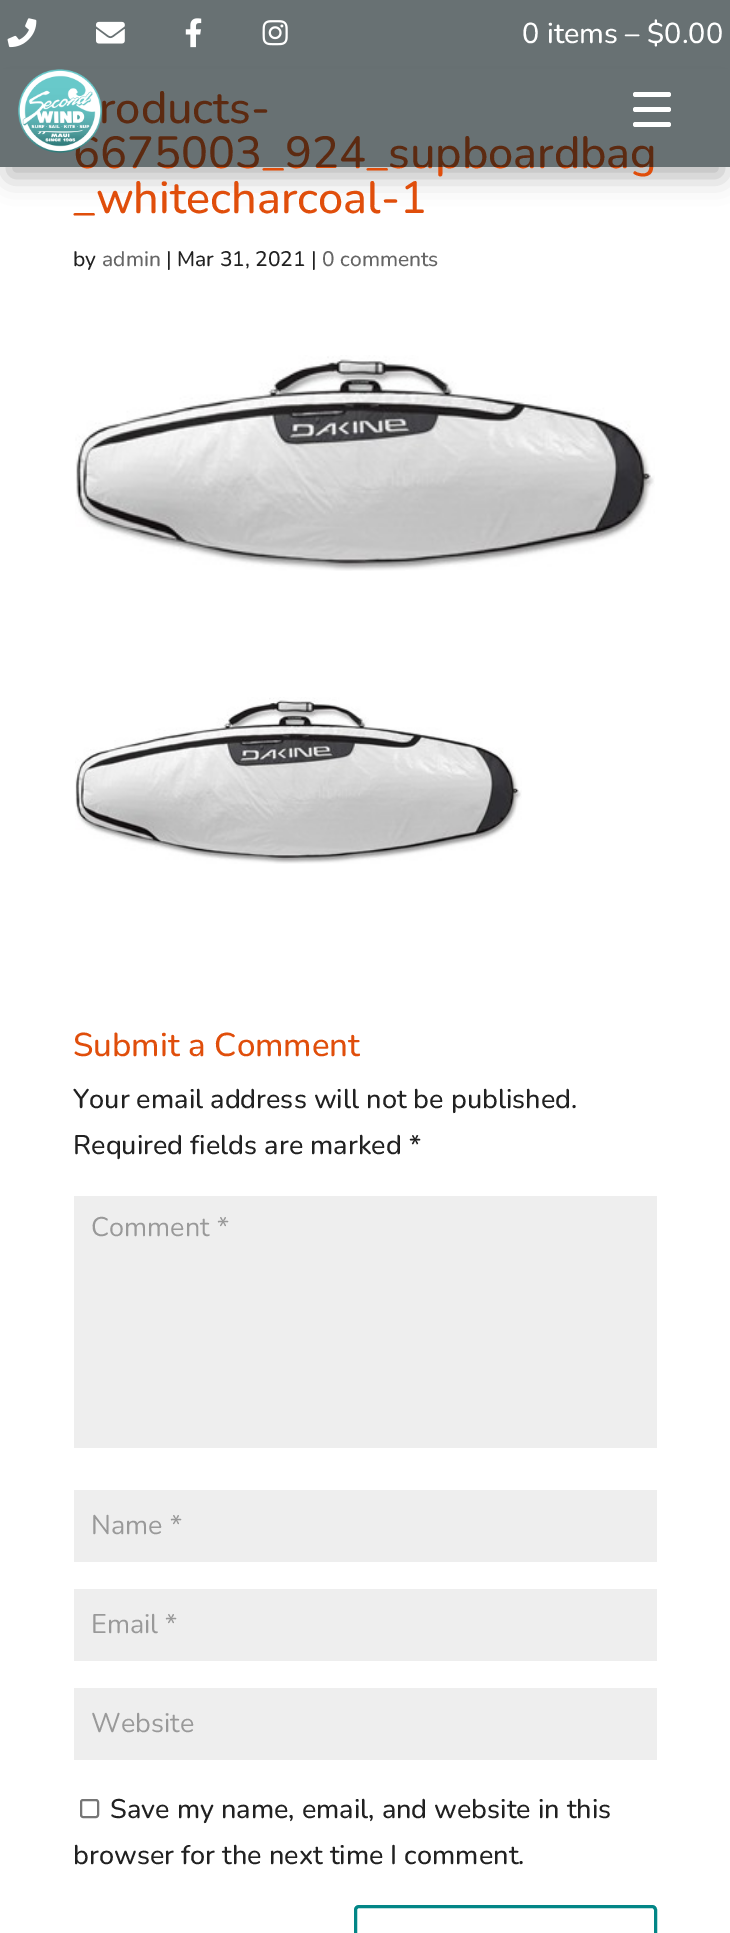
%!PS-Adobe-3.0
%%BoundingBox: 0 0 730 1933
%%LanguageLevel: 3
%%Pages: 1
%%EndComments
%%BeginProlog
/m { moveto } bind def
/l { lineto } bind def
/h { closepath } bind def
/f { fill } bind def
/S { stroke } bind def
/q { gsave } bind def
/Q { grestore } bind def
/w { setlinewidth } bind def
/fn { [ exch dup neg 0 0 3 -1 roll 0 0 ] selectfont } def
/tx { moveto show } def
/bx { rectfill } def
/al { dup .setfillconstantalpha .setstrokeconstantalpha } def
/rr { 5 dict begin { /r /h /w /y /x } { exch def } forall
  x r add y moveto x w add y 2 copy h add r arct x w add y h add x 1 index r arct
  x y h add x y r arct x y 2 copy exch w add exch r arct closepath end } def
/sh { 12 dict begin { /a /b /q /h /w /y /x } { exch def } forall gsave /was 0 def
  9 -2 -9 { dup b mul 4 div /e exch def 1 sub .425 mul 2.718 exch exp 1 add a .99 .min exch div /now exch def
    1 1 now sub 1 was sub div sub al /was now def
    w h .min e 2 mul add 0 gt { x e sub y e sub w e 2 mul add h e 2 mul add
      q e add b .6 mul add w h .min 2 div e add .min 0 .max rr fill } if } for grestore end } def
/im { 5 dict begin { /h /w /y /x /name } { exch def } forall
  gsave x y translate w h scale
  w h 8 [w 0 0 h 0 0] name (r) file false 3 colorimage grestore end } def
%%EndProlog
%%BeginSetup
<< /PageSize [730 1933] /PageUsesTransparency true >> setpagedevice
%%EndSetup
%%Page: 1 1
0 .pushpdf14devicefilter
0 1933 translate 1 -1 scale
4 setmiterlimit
1 setgray
0 0 730 1933 bx
0.408 0.443 0.451 setrgbcolor
0 0 730 69 bx
(image0.raw) 7 18 30 30 im
(image1.raw) 96 21 29 23 im
(image2.raw) 185 18 17 30 im
(image3.raw) 262 20 26 26 im
/Nunito-Medium 28.75 fn
1 setgray
(0 items – $0.00) 522 43 tx
q
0 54 m 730 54 l 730 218 l 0 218 l h 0 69 m 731 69 l 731 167 l 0 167 l h eoclip newpath
0 setgray
9 96 713 80 0 13.5 0.3 sh
Q
/Nunito-Medium 45 fn
0.878 0.306 0.043 setrgbcolor
(roducts-) 99 123 tx
(6675003_924_supboardbag) 73 168 tx
0.6 al
0.016 0.071 0.082 setrgbcolor
0 69 730 98 bx
1 al
(image4.raw) 18 69 84 84 im
0.878 0.306 0.043 setrgbcolor
(_whitecharcoal-1) 73 213 tx
/Nunito-Medium 21 fn
0.129 setgray
(by) 73 266 tx
0.4 setgray
(admin) 102 266 tx
0.129 setgray
(| Mar 31, 2021 |) 166 266 tx
0.4 setgray
(0 comments) 322 266 tx
(image5.raw) 75 355 580 216 im
(image6.raw) 75 697 447 167 im
/Nunito-Medium 33 fn
0.878 0.306 0.043 setrgbcolor
(Submit a Comment) 73 1056 tx
/Nunito-Medium 27 fn
0.129 setgray
(Your email address will not be published.) 73 1108 tx
(Required fields are marked *) 73 1154 tx
0.933 setgray
74 1196 583 252 bx
/Nunito-Regular 27 fn
0.6 setgray
(Comment *) 91 1236 tx
0.933 setgray
74 1490 583 72 bx
0.6 setgray
(Name *) 91 1534 tx
0.933 setgray
74 1589 583 72 bx
0.6 setgray
(Email *) 91 1633 tx
0.933 setgray
74 1688 583 72 bx
0.6 setgray
(Website) 91 1732 tx
0.463 setgray
2 w
81 1800 17 17 2 rr S
/Nunito-Medium 27 fn
0.129 setgray
(Save my name, email, and website in this) 110 1818 tx
(browser for the next time I comment.) 73 1864 tx
0.008 0.525 0.529 setrgbcolor
3 w
355.5 1906.5 300 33 3.5 rr S
1 setgray
633 107 38 5 2.5 rr f
633 92 38 5 2.5 rr f
633 122 38 5 2.5 rr f
.poppdf14devicefilter showpage
%%EOF
